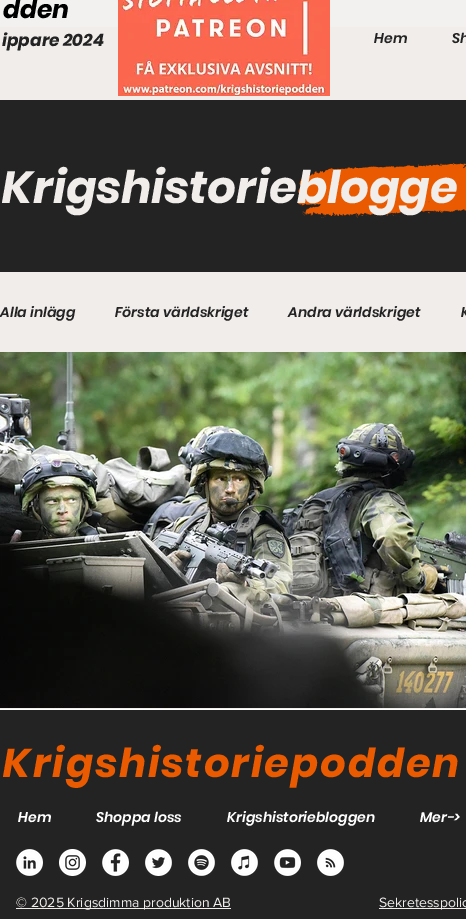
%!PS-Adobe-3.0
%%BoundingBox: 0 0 466 919
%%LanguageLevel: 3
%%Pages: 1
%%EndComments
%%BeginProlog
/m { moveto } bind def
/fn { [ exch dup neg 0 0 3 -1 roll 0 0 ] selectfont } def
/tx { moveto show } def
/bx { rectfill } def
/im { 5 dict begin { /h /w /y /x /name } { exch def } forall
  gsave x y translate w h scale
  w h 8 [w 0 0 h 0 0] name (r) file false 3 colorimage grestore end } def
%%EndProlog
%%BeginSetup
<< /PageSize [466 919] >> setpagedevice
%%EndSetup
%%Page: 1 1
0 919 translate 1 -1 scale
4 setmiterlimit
0.941 0.929 0.922 setrgbcolor
0 0 466 919 bx
(image0.raw) 0 0 466 27 im
/Poppins-BoldItalic 25 fn
0 setgray
(dden) 3 18 tx
(image1.raw) 118 0 212 96 im
/Poppins-BoldItalic 17 fn
0.141 0.137 0.137 setrgbcolor
(ippare 2024) 2 46 tx
/Poppins-SemiBoldItalic 14 fn
(Hem) 374 43 tx
(Sh) 452 43 tx
0 100 466 172 bx
(image2.raw) 298 163 168 56 im
/Poppins-BoldItalic 45 fn
0.941 0.929 0.922 setrgbcolor
(Krigshistorieblogge) 2 203 tx
/Poppins-SemiBoldItalic 14 fn
0.141 0.137 0.137 setrgbcolor
(Alla inlägg) 0 317 tx
(Första världskriget) 115 317 tx
(Andra världskriget) 288 317 tx
(K) 461 317 tx
(image3.raw) 0 352 466 356 im
1 setgray
0 709 466 1 bx
0.141 0.137 0.137 setrgbcolor
0 710 466 209 bx
/Poppins-BoldItalic 40 fn
0.918 0.353 0 setrgbcolor
3 777 m 2 0 (Krigshistoriepodden) ashow
/Poppins-SemiBoldItalic 14 fn
1 setgray
(Hem) 18 822 tx
(Shoppa loss) 96 822 tx
(Krigshistoriebloggen) 227 822 tx
(Mer->) 420 822 tx
(image4.raw) 16 849 27 27 im
(image5.raw) 59 849 27 27 im
(image6.raw) 102 849 27 27 im
(image7.raw) 145 849 27 27 im
(image8.raw) 188 849 27 27 im
(image9.raw) 231 849 27 27 im
(image10.raw) 274 849 27 27 im
(image11.raw) 317 849 27 27 im
0.941 0.929 0.922 setrgbcolor
16 908 215 1 bx
/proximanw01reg-Regular 14 fn
(© 2025 Krigsdimma produktion AB) 16 907 tx
379 908 87 1 bx
(Sekretesspolic) 379 907 tx
showpage
%%EOF
